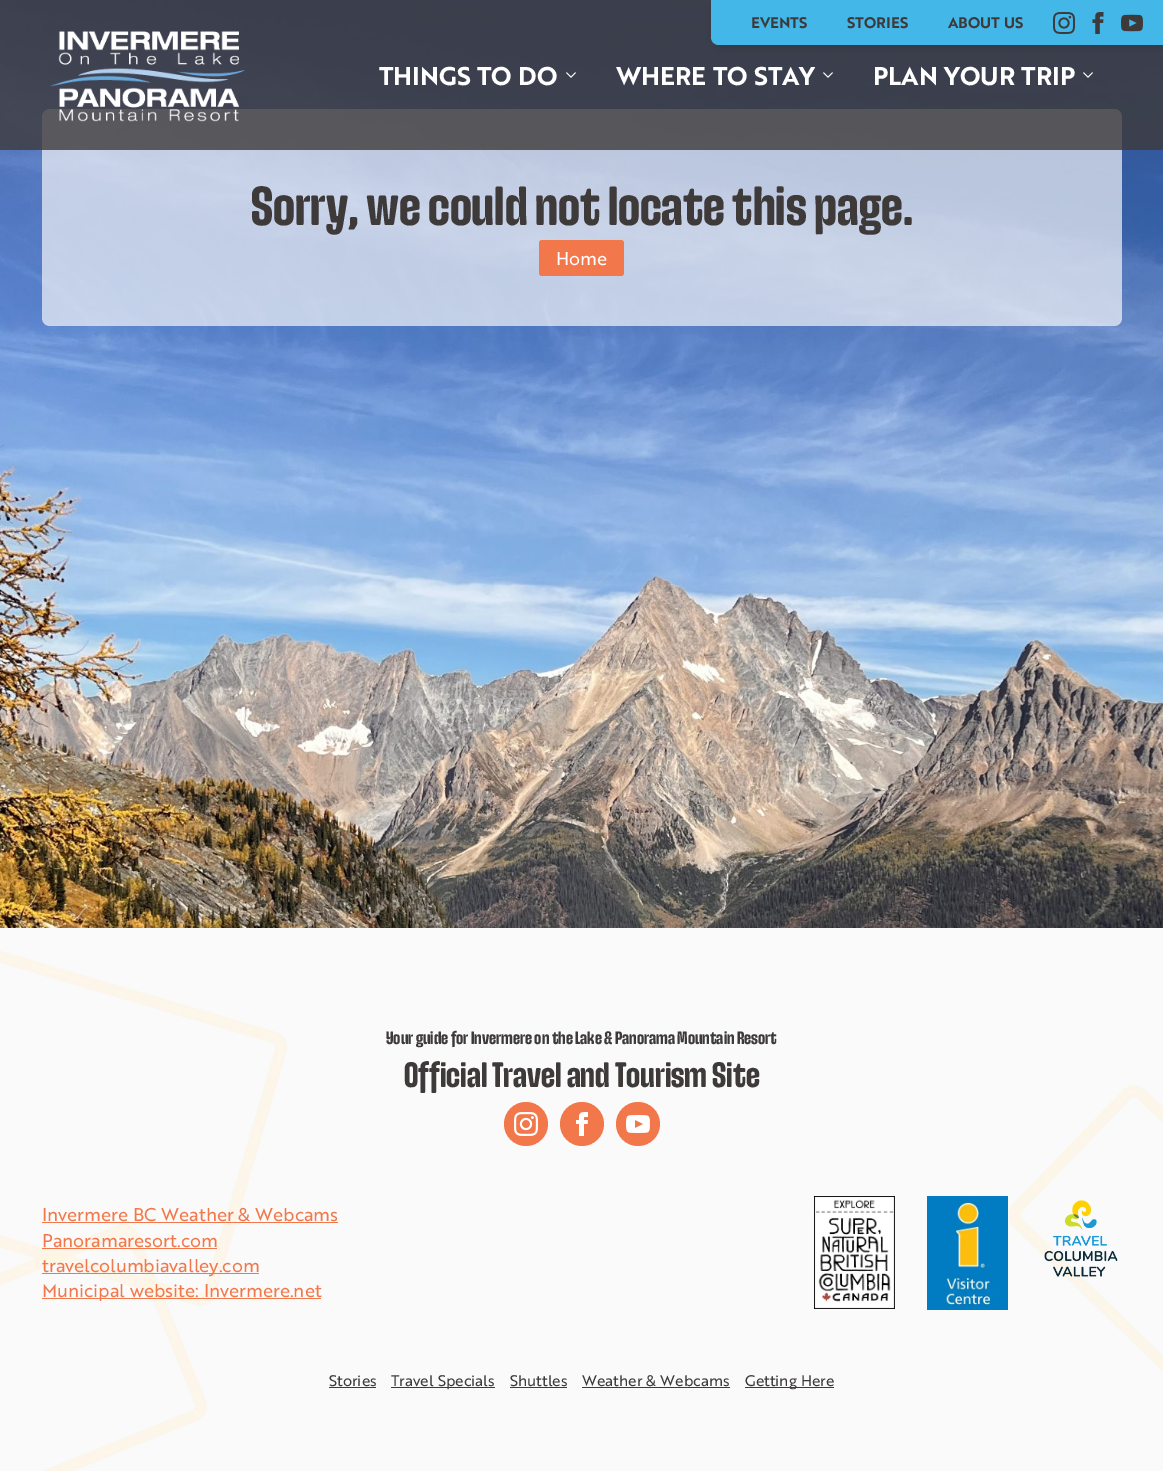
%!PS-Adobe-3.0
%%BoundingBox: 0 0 1163 1471
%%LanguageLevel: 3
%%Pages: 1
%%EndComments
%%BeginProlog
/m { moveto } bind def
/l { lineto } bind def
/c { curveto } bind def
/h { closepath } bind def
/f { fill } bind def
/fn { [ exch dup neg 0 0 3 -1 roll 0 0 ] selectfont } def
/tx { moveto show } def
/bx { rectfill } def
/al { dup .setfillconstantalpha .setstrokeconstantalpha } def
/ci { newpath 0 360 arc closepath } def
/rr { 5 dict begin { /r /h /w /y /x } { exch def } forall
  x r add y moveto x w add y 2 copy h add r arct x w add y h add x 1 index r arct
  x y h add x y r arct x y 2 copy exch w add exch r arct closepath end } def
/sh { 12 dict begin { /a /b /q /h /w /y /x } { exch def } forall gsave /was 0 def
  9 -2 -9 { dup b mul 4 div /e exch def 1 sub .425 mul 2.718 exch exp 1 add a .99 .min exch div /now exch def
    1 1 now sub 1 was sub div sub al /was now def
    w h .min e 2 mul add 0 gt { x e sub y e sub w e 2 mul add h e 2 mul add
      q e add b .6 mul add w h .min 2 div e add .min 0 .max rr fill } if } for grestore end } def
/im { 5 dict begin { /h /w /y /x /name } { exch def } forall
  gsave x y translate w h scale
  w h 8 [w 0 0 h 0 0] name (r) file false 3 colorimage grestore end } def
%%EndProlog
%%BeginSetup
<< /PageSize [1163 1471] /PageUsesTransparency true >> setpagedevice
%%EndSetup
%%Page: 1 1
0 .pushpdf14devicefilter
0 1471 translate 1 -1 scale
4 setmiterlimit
0.98 setgray
0 0 1163 1471 bx
(image7.raw) 0 0 1163 928 im
0.67 al
42 109 1080 217 8 rr f
0.8 al
0.243 0.227 0.227 setrgbcolor
0 0 1163 150 bx
1 al
0 setgray
713 2 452 45 8 6 0.14 sh
0.267 0.718 0.914 setrgbcolor
711 0 m 1163 0 l 1163 45 l 719 45 l 714.5 45 711 41.5 711 37 c h f
/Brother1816-Bold 15 fn
0.243 0.227 0.227 setrgbcolor
(EVENTS) 751 28 tx
(STORIES) 847 28 tx
(ABOUT US) 948 28 tx
(image0.raw) 1053 12 22 22 im
(image1.raw) 1092 12 12 22 im
(image2.raw) 1121 14 22 18 im
(image3.raw) 50 31 195 91 im
/Brother1816-Bold 25 fn
1 setgray
(THINGS TO DO) 379 85 tx
(image4.raw) 566 72 10 6 im
(WHERE TO STAY) 616 85 tx
(image5.raw) 823 72 10 6 im
(PLAN YOUR TRIP) 873 85 tx
(image6.raw) 1083 72 10 6 im
/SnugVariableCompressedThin-Bold 55 fn
0.243 0.227 0.227 setrgbcolor
(Sorry, we could not locate this page.) 251 225 tx
0.949 0.471 0.294 setrgbcolor
539 240 85 36 3 rr f
/Brother1816-Regular 18 fn
1 setgray
(Home) 556 265 tx
(image8.raw) 0 950 1163 521 im
/SnugVariableCompressedThin-Bold 18 fn
0.243 0.227 0.227 setrgbcolor
(Your guide for Invermere on the Lake & Panorama Mountain Resort) 386 1044 tx
/SnugVariableCompressedThin-Bold 35.25 fn
(Official Travel and Tourism Site) 404 1087 tx
0.949 0.471 0.294 setrgbcolor
526 1124 22 ci f
(image9.raw) 514 1112 24 24 im
582 1124 22 ci f
(image10.raw) 576 1112 12 24 im
638 1124 22 ci f
(image11.raw) 626 1115 24 18 im
/Brother1816-Regular 18 fn
(Invermere BC Weather & Webcams) 42 1221 tx
42 1222 296 1 bx
(Panoramaresort.com) 42 1247 tx
42 1248 175 1 bx
42 1273 217 1 bx
(travelcolumbiavalley.com) 42 1272 tx
42 1298 279 1 bx
(Municipal website: Invermere.net) 42 1297 tx
(image12.raw) 814 1196 81 113 im
(image13.raw) 927 1196 81 114 im
(image14.raw) 1044 1200 74 77 im
/Brother1816-Regular 15 fn
0.243 0.227 0.227 setrgbcolor
(Stories) 329 1386 tx
329 1387 47 1 bx
391 1387 104 1 bx
(Travel Specials) 391 1386 tx
(Shuttles) 510 1386 tx
510 1387 57 1 bx
(Weather & Webcams) 582 1386 tx
582 1387 148 1 bx
745 1387 89 1 bx
(Getting Here) 745 1386 tx
.poppdf14devicefilter showpage
%%EOF
